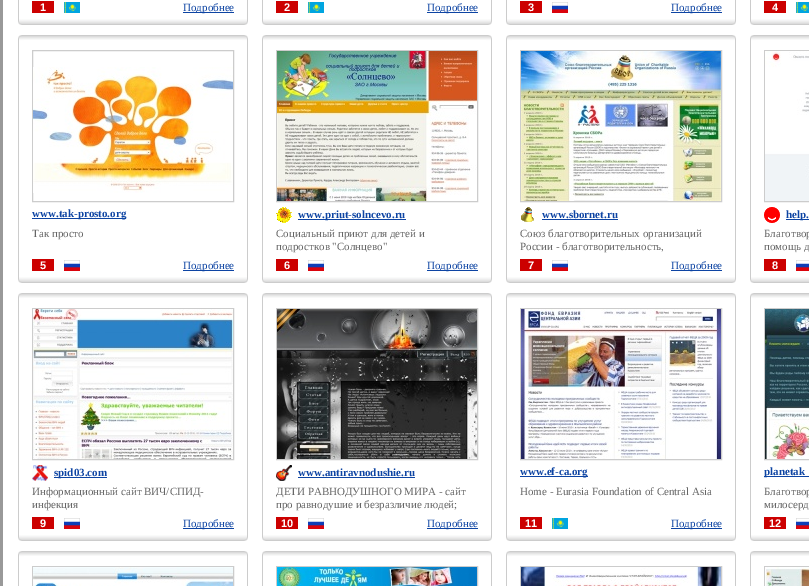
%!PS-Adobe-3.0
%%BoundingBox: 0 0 809 586
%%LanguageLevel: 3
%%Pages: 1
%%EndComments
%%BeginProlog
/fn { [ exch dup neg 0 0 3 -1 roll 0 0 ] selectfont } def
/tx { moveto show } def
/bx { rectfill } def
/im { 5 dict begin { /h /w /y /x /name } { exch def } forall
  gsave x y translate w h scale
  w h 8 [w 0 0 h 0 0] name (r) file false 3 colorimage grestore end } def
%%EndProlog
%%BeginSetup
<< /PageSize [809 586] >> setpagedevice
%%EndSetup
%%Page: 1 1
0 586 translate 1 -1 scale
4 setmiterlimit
1 setgray
0 0 809 586 bx
0.6 setgray
0 0 3 586 bx
0.8 setgray
18 0 1 13 bx
0.8 0 0 setrgbcolor
32 1 22 12 bx
/LiberationSans-Bold 11 fn
1 setgray
(1) 40 11 tx
(image0.raw) 64 2 16 11 im
0.051 0.267 0.639 setrgbcolor
183 12 51 1 bx
/LiberationSerif-Regular 11 fn
(Подробнее) 183 11 tx
0.8 setgray
247 0 1 13 bx
(image1.raw) 18 13 6 12 im
(image2.raw) 24 19 218 6 im
(image3.raw) 242 13 6 12 im
262 0 1 13 bx
0.8 0 0 setrgbcolor
276 1 22 12 bx
/LiberationSans-Bold 11 fn
1 setgray
(2) 284 11 tx
(image0.raw) 308 2 16 11 im
0.051 0.267 0.639 setrgbcolor
427 12 51 1 bx
/LiberationSerif-Regular 11 fn
(Подробнее) 427 11 tx
0.8 setgray
491 0 1 13 bx
(image1.raw) 262 13 6 12 im
(image2.raw) 268 19 218 6 im
(image3.raw) 486 13 6 12 im
506 0 1 13 bx
0.8 0 0 setrgbcolor
520 1 22 12 bx
/LiberationSans-Bold 11 fn
1 setgray
(3) 528 11 tx
(image4.raw) 552 2 16 11 im
0.051 0.267 0.639 setrgbcolor
671 12 51 1 bx
/LiberationSerif-Regular 11 fn
(Подробнее) 671 11 tx
0.8 setgray
735 0 1 13 bx
(image1.raw) 506 13 6 12 im
(image2.raw) 512 19 218 6 im
(image3.raw) 730 13 6 12 im
750 0 1 13 bx
0.8 0 0 setrgbcolor
764 1 22 12 bx
/LiberationSans-Bold 11 fn
1 setgray
(4) 772 11 tx
(image5.raw) 796 2 13 11 im
(image1.raw) 750 13 6 12 im
(image6.raw) 756 19 53 6 im
(image7.raw) 18 35 6 12 im
(image8.raw) 24 35 218 5 im
(image9.raw) 242 35 6 12 im
0.8 setgray
18 47 1 224 bx
32.5 50.5 201 151 rectstroke
(image10.raw) 33 67 200 126 im
0.051 0.267 0.639 setrgbcolor
32 218 94 1 bx
/LiberationSerif-Bold 11 fn
(www.tak-prosto.org) 32 217 tx
/LiberationSerif-Regular 11 fn
0.4 setgray
(Так просто) 32 237 tx
0.8 0 0 setrgbcolor
32 259 22 12 bx
/LiberationSans-Bold 11 fn
1 setgray
(5) 40 269 tx
(image4.raw) 64 260 16 11 im
0.051 0.267 0.639 setrgbcolor
183 270 51 1 bx
/LiberationSerif-Regular 11 fn
(Подробнее) 183 269 tx
0.8 setgray
247 47 1 224 bx
(image1.raw) 18 271 6 12 im
(image2.raw) 24 277 218 6 im
(image3.raw) 242 271 6 12 im
(image7.raw) 262 35 6 12 im
(image8.raw) 268 35 218 5 im
(image9.raw) 486 35 6 12 im
262 47 1 224 bx
276.5 50.5 201 151 rectstroke
(image11.raw) 277 51 200 150 im
(image12.raw) 276 207 16 16 im
0.051 0.267 0.639 setrgbcolor
298 219 108 1 bx
/LiberationSerif-Bold 11 fn
(www.priut-solncevo.ru) 298 218 tx
/LiberationSerif-Regular 11 fn
0.4 setgray
(Социальный приют для детей и) 276 237 tx
(подростков "Солнцево") 276 250 tx
0.8 0 0 setrgbcolor
276 259 22 12 bx
/LiberationSans-Bold 11 fn
1 setgray
(6) 284 269 tx
(image4.raw) 308 260 16 11 im
0.051 0.267 0.639 setrgbcolor
427 270 51 1 bx
/LiberationSerif-Regular 11 fn
(Подробнее) 427 269 tx
0.8 setgray
491 47 1 224 bx
(image1.raw) 262 271 6 12 im
(image2.raw) 268 277 218 6 im
(image3.raw) 486 271 6 12 im
(image7.raw) 506 35 6 12 im
(image8.raw) 512 35 218 5 im
(image9.raw) 730 35 6 12 im
506 47 1 224 bx
520.5 50.5 201 151 rectstroke
(image13.raw) 521 51 200 150 im
(image14.raw) 521 207 13 15 im
/LiberationSerif-Bold 11 fn
0.051 0.267 0.639 setrgbcolor
(www.sbornet.ru) 542 218 tx
542 219 76 1 bx
/LiberationSerif-Regular 11 fn
0.4 setgray
(Союз благотворительных организаций) 520 237 tx
(России - благотворительность,) 520 250 tx
0.8 0 0 setrgbcolor
520 259 22 12 bx
/LiberationSans-Bold 11 fn
1 setgray
(7) 528 269 tx
(image4.raw) 552 260 16 11 im
0.051 0.267 0.639 setrgbcolor
671 270 51 1 bx
/LiberationSerif-Regular 11 fn
(Подробнее) 671 269 tx
0.8 setgray
735 47 1 224 bx
(image1.raw) 506 271 6 12 im
(image2.raw) 512 277 218 6 im
(image3.raw) 730 271 6 12 im
(image7.raw) 750 35 6 12 im
(image15.raw) 756 35 53 5 im
750 47 1 224 bx
764.5 50.5 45 151 rectstroke
(image16.raw) 765 51 44 150 im
(image17.raw) 764 207 16 16 im
0.051 0.267 0.639 setrgbcolor
786 219 23 1 bx
/LiberationSerif-Bold 11 fn
(help.) 786 218 tx
/LiberationSerif-Regular 11 fn
0.4 setgray
(Благотвор) 764 237 tx
(помощь д) 764 250 tx
0.8 0 0 setrgbcolor
764 259 22 12 bx
/LiberationSans-Bold 11 fn
1 setgray
(8) 772 269 tx
(image18.raw) 796 260 13 11 im
(image1.raw) 750 271 6 12 im
(image6.raw) 756 277 53 6 im
(image7.raw) 18 293 6 12 im
(image8.raw) 24 293 218 5 im
(image9.raw) 242 293 6 12 im
0.8 setgray
18 305 1 224 bx
32.5 308.5 201 151 rectstroke
(image19.raw) 33 309 200 150 im
(image20.raw) 32 465 16 16 im
0.051 0.267 0.639 setrgbcolor
54 477 53 1 bx
/LiberationSerif-Bold 11 fn
(spid03.com) 54 476 tx
/LiberationSerif-Regular 11 fn
0.4 setgray
(Информационный сайт ВИЧ/СПИД-) 32 495 tx
(инфекция) 32 508 tx
0.8 0 0 setrgbcolor
32 517 22 12 bx
/LiberationSans-Bold 11 fn
1 setgray
(9) 40 527 tx
(image4.raw) 64 518 16 11 im
0.051 0.267 0.639 setrgbcolor
183 528 51 1 bx
/LiberationSerif-Regular 11 fn
(Подробнее) 183 527 tx
0.8 setgray
247 305 1 224 bx
(image1.raw) 18 529 6 12 im
(image2.raw) 24 535 218 6 im
(image3.raw) 242 529 6 12 im
(image7.raw) 262 293 6 12 im
(image8.raw) 268 293 218 5 im
(image9.raw) 486 293 6 12 im
262 305 1 224 bx
276.5 308.5 201 151 rectstroke
(image21.raw) 277 309 200 150 im
(image22.raw) 276 465 16 16 im
/LiberationSerif-Bold 11 fn
0.051 0.267 0.639 setrgbcolor
(www.antiravnodushie.ru) 298 476 tx
298 477 117 1 bx
/LiberationSerif-Regular 11 fn
0.4 setgray
(ДЕТИ РАВНОДУШНОГО МИРА - сайт) 276 495 tx
(про равнодушие и безразличие людей;) 276 508 tx
0.8 0 0 setrgbcolor
276 517 22 12 bx
/LiberationSans-Bold 11 fn
1 setgray
(10) 281 527 tx
(image4.raw) 308 518 16 11 im
0.051 0.267 0.639 setrgbcolor
427 528 51 1 bx
/LiberationSerif-Regular 11 fn
(Подробнее) 427 527 tx
0.8 setgray
491 305 1 224 bx
(image1.raw) 262 529 6 12 im
(image2.raw) 268 535 218 6 im
(image3.raw) 486 529 6 12 im
(image7.raw) 506 293 6 12 im
(image8.raw) 512 293 218 5 im
(image9.raw) 730 293 6 12 im
506 305 1 224 bx
520.5 308.5 201 151 rectstroke
(image23.raw) 521 309 200 150 im
0.051 0.267 0.639 setrgbcolor
520 476 68 1 bx
/LiberationSerif-Bold 11 fn
(www.ef-ca.org) 520 475 tx
/LiberationSerif-Regular 11 fn
0.4 setgray
(Home - Eurasia Foundation of Central Asia) 520 495 tx
0.8 0 0 setrgbcolor
520 517 22 12 bx
/LiberationSans-Bold 11 fn
1 setgray
(11) 525 527 tx
(image0.raw) 552 518 16 11 im
0.051 0.267 0.639 setrgbcolor
671 528 51 1 bx
/LiberationSerif-Regular 11 fn
(Подробнее) 671 527 tx
0.8 setgray
735 305 1 224 bx
(image1.raw) 506 529 6 12 im
(image2.raw) 512 535 218 6 im
(image3.raw) 730 529 6 12 im
(image7.raw) 750 293 6 12 im
(image15.raw) 756 293 53 5 im
750 305 1 224 bx
764.5 308.5 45 151 rectstroke
(image24.raw) 765 309 44 150 im
0.051 0.267 0.639 setrgbcolor
764 476 45 1 bx
/LiberationSerif-Bold 11 fn
(planetak) 764 475 tx
/LiberationSerif-Regular 11 fn
0.4 setgray
(Благотвор) 764 495 tx
(милосерд) 764 508 tx
0.8 0 0 setrgbcolor
764 517 22 12 bx
/LiberationSans-Bold 11 fn
1 setgray
(12) 769 527 tx
(image18.raw) 796 518 13 11 im
(image1.raw) 750 529 6 12 im
(image6.raw) 756 535 53 6 im
(image7.raw) 18 551 6 12 im
(image8.raw) 24 551 218 5 im
(image9.raw) 242 551 6 12 im
0.8 setgray
18 563 1 23 bx
32.5 566.5 201 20 rectstroke
(image25.raw) 33 567 200 19 im
247 563 1 23 bx
(image7.raw) 262 551 6 12 im
(image8.raw) 268 551 218 5 im
(image9.raw) 486 551 6 12 im
262 563 1 23 bx
276.5 566.5 201 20 rectstroke
(image26.raw) 277 567 200 19 im
491 563 1 23 bx
(image7.raw) 506 551 6 12 im
(image8.raw) 512 551 218 5 im
(image9.raw) 730 551 6 12 im
506 563 1 23 bx
520.5 566.5 201 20 rectstroke
(image27.raw) 521 567 200 19 im
735 563 1 23 bx
(image7.raw) 750 551 6 12 im
(image15.raw) 756 551 53 5 im
750 563 1 23 bx
764.5 566.5 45 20 rectstroke
(image28.raw) 765 567 44 19 im
showpage
%%EOF
